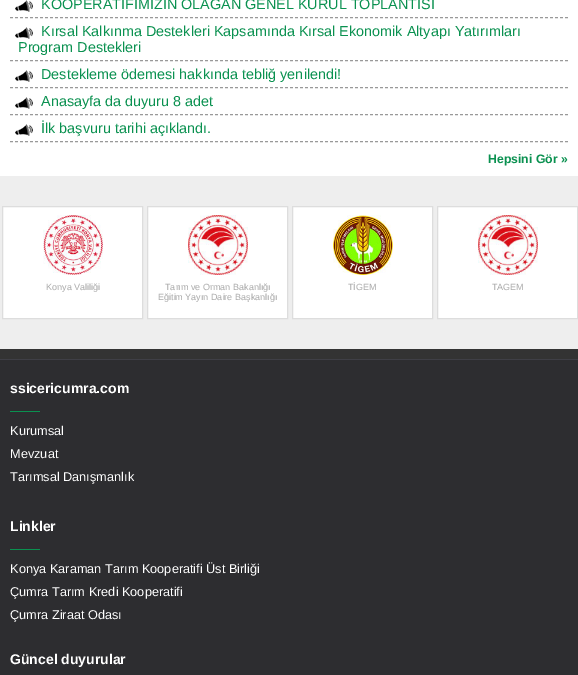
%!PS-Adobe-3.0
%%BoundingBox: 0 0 578 675
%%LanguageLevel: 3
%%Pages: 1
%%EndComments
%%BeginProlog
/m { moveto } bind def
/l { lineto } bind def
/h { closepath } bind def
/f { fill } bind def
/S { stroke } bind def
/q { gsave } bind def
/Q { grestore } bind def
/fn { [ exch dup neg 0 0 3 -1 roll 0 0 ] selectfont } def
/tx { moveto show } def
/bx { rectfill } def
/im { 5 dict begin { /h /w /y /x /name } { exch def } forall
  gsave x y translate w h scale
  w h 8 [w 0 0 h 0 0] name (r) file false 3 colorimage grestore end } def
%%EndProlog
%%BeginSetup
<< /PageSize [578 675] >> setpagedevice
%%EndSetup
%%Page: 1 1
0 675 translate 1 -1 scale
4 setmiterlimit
0.933 setgray
0 0 578 675 bx
1 setgray
0 0 578 176 bx
0.6 setgray
[3 2] 0 setdash
10 17.5 m 568 17.5 l S
(image0.raw) 15 0 18 12 im
/LiberationSans-Regular 14.4 fn
0.039 0.569 0.314 setrgbcolor
(KOOPERATİFİMİZİN OLAĞAN GENEL KURUL TOPLANTISI) 41 9 tx
0.6 setgray
10 60.5 m 568 60.5 l S
0.039 0.569 0.314 setrgbcolor
(Kırsal Kalkınma Destekleri Kapsamında Kırsal Ekonomik Altyapı Yatırımları) 41 36 tx
(Program Destekleri) 18 52 tx
(image0.raw) 15 27 18 12 im
0.6 setgray
10 87.5 m 568 87.5 l S
(image0.raw) 15 70 18 12 im
0.039 0.569 0.314 setrgbcolor
(Destekleme ödemesi hakkında tebliğ yenilendi!) 41 79 tx
0.6 setgray
10 114.5 m 568 114.5 l S
(image0.raw) 15 97 18 12 im
0.039 0.569 0.314 setrgbcolor
(Anasayfa da duyuru 8 adet) 41 106 tx
0.6 setgray
10 141.5 m 568 141.5 l S
(image0.raw) 15 124 18 12 im
0.039 0.569 0.314 setrgbcolor
(İlk başvuru tarihi açıklandı.) 41 133 tx
/LiberationSans-Bold 12.25 fn
(Hepsini Gör ») 488 163 tx
1 setgray
2.5 206.5 m 142.5 206.5 l 142.5 318.5 l 2.5 318.5 l h q f Q
0.867 setgray
[] 0 setdash
S
(image1.raw) 43 215 60 60 im
/LiberationSans-Regular 9 fn
0.667 setgray
(Konya Valiliği) 46 290 tx
1 setgray
147.5 206.5 m 287.5 206.5 l 287.5 318.5 l 147.5 318.5 l h q f Q
0.867 setgray
S
(image2.raw) 188 215 60 60 im
0.667 setgray
(Tarım ve Orman Bakanlığı) 165 290 tx
(Eğitim Yayın Daire Başkanlığı) 158 300 tx
1 setgray
292.5 206.5 m 432.5 206.5 l 432.5 318.5 l 292.5 318.5 l h q f Q
0.867 setgray
S
(image3.raw) 333 215 60 60 im
0.667 setgray
(TİGEM) 348 290 tx
1 setgray
437.5 206.5 m 577.5 206.5 l 577.5 318.5 l 437.5 318.5 l h q f Q
0.867 setgray
S
(image4.raw) 478 215 60 60 im
0.667 setgray
(TAGEM) 492 290 tx
0.2 setgray
0 349 578 10 bx
0.247 0.247 0.275 setrgbcolor
0 359 578 1 bx
0.176 0.176 0.188 setrgbcolor
0 360 578 315 bx
/LiberationSans-Bold 14 fn
1 setgray
(ssicericumra.com) 10 393 tx
0.039 0.569 0.314 setrgbcolor
10 411 30 1 bx
/LiberationSans-Regular 12.75 fn
1 setgray
(Kurumsal) 10 435 tx
(Mevzuat) 10 458 tx
(Tarımsal Danışmanlık) 10 481 tx
/LiberationSans-Bold 14 fn
(Linkler) 10 531 tx
0.039 0.569 0.314 setrgbcolor
10 549 30 1 bx
/LiberationSans-Regular 12.75 fn
1 setgray
(Konya Karaman Tarım Kooperatifi Üst Birliği) 10 573 tx
(Çumra Tarım Kredi Kooperatifi) 10 596 tx
(Çumra Ziraat Odası) 10 619 tx
/LiberationSans-Bold 14 fn
(Güncel duyurular) 10 664 tx
showpage
%%EOF
